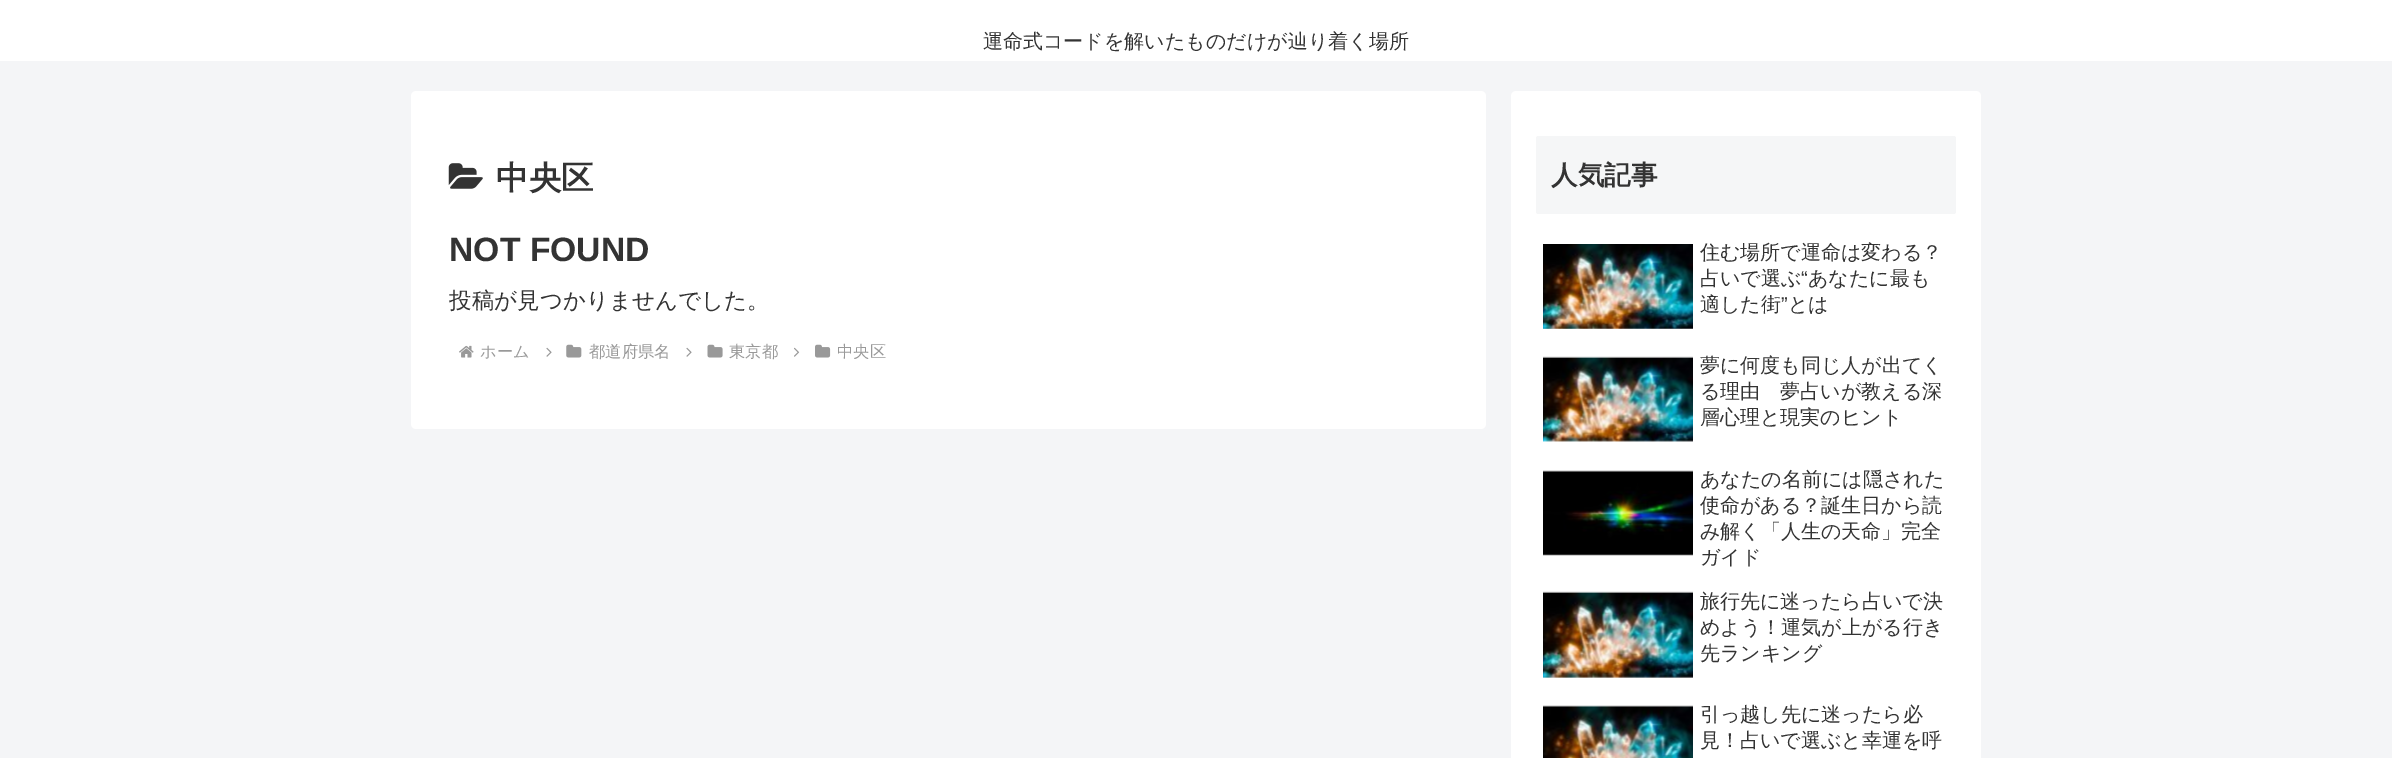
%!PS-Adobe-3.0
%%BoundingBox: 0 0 2392 758
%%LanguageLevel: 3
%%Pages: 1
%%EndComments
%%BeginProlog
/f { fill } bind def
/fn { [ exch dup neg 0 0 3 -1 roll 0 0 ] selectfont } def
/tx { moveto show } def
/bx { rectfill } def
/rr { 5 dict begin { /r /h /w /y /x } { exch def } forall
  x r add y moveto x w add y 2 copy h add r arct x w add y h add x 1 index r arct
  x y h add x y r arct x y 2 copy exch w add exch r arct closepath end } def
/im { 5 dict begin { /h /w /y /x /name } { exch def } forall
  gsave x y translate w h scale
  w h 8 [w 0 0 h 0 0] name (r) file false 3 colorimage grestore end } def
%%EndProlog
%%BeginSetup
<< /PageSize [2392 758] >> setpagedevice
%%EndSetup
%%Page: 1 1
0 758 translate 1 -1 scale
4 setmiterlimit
0.957 0.961 0.969 setrgbcolor
0 0 2392 758 bx
1 setgray
0 0 2392 61 bx
/WenQuanYiZenHei-Medium 20 fn
0.2 setgray
(運命式コードを解いたものだけが辿り着く場所) 983 48 tx
1 setgray
411 91 1075 338 5 rr f
(image0.raw) 448 163 35 26 im
/WenQuanYiZenHei-Bold 32.5 fn
0.2 setgray
(中央区) 496 189 tx
/LiberationSans-Bold 33.75 fn
(NOT FOUND) 449 261 tx
/WenQuanYiZenHei-Medium 22.5 fn
(投稿が見つかりませんでした。) 449 308 tx
(image1.raw) 459 345 15 13 im
/WenQuanYiZenHei-Medium 16.25 fn
0.6 setgray
(ホーム) 480 357 tx
(image2.raw) 546 347 6 10 im
(image3.raw) 566 344 16 14 im
(都道府県名) 589 357 tx
(image2.raw) 686 347 6 10 im
(image4.raw) 707 344 16 14 im
(東京都) 729 357 tx
(image5.raw) 794 347 6 10 im
(image6.raw) 815 344 16 14 im
(中央区) 837 357 tx
1 setgray
1511 91 470 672 5 rr f
0.961 0.965 0.969 setrgbcolor
1536 136 420 78 2.5 rr f
/WenQuanYiZenHei-Bold 26.5 fn
0.2 setgray
(人気記事) 1551 184 tx
(image7.raw) 1543 244 150 85 im
/WenQuanYiZenHei-Medium 20 fn
(住む場所で運命は変わる？) 1700 259 tx
(占いで選ぶ) 1700 285 tx
/LiberationSans-Regular 20 fn
(“) 1801 285 tx
/WenQuanYiZenHei-Medium 20 fn
(あなたに最も) 1808 285 tx
(適した街) 1700 311 tx
/LiberationSans-Regular 20 fn
(”) 1781 311 tx
/WenQuanYiZenHei-Medium 20 fn
(とは) 1788 311 tx
(image8.raw) 1543 356 150 86 im
(夢に何度も同じ人が出てく) 1700 372 tx
(る理由　夢占いが教える深) 1700 398 tx
(層心理と現実のヒント) 1700 424 tx
(image9.raw) 1543 470 150 86 im
(あなたの名前には隠された) 1700 486 tx
(使命がある？誕生日から読) 1700 512 tx
(み解く「人生の天命」完全) 1700 538 tx
(ガイド) 1700 564 tx
(image10.raw) 1543 591 150 87 im
(旅行先に迷ったら占いで決) 1700 608 tx
(めよう！運気が上がる行き) 1700 634 tx
(先ランキング) 1700 660 tx
(image11.raw) 1543 705 150 53 im
(引っ越し先に迷ったら必) 1700 721 tx
(見！占いで選ぶと幸運を呼) 1700 747 tx
showpage
%%EOF
